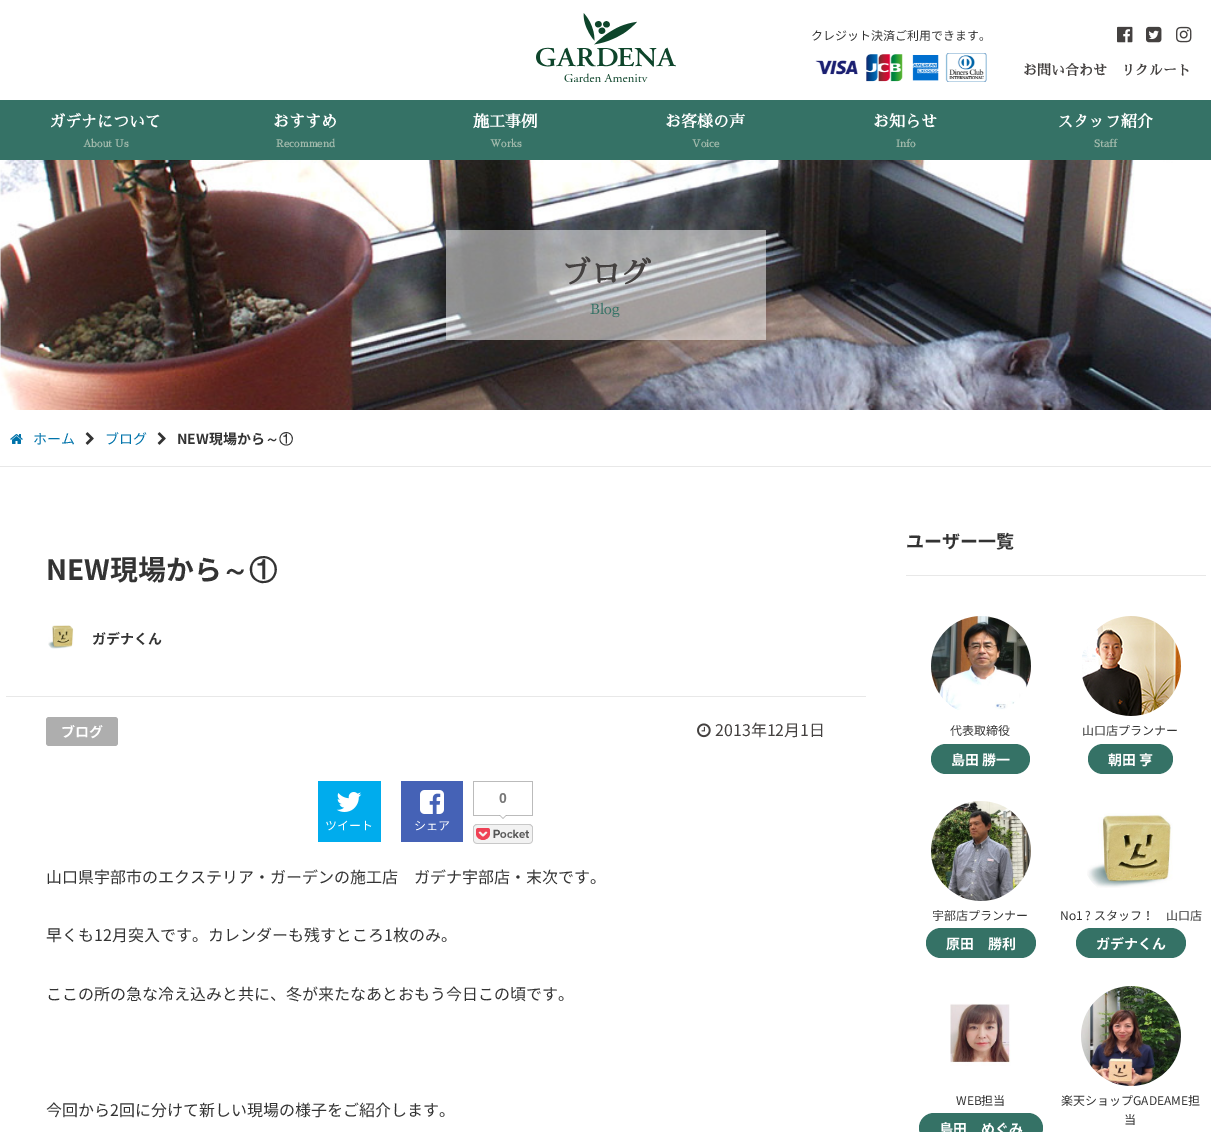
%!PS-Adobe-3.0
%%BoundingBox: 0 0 1211 1132
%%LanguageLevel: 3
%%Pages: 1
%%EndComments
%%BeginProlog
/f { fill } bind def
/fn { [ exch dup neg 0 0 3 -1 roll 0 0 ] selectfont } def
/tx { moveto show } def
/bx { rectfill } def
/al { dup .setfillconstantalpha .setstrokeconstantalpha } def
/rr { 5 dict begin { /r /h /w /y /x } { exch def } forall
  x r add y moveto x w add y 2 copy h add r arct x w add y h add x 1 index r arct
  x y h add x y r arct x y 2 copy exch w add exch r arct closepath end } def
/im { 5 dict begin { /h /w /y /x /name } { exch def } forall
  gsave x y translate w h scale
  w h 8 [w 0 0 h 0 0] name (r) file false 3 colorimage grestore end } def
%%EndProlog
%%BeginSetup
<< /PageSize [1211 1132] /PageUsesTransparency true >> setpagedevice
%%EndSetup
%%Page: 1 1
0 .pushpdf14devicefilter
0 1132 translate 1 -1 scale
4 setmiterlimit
1 setgray
0 0 1211 1132 bx
(image0.raw) 536 13 140 69 im
/NotoSansJP-Regular 12 fn
0.2 setgray
(クレジット決済ご利用できます。) 811 40 tx
(image1.raw) 815 53 172 29 im
(image2.raw) 1117 26 16 17 im
(image3.raw) 1146 26 16 17 im
(image4.raw) 1176 26 16 17 im
/SawarabiMincho-Bold 14 fn
0.267 0.255 0.251 setrgbcolor
(お問い合わせ) 1023 75 tx
(リクルート) 1121 75 tx
0.208 0.447 0.4 setrgbcolor
0 100 1211 60 bx
/SawarabiMincho-Bold 16 fn
1 setgray
(ガデナについて) 49 127 tx
/SawarabiMincho-Bold 10 fn
0.635 0.729 0.675 setrgbcolor
(About Us) 83 147 tx
/SawarabiMincho-Bold 16 fn
1 setgray
(おすすめ) 273 127 tx
/SawarabiMincho-Bold 10 fn
0.635 0.729 0.675 setrgbcolor
(Recommend) 276 147 tx
/SawarabiMincho-Bold 16 fn
1 setgray
(施工事例) 473 127 tx
/SawarabiMincho-Bold 10 fn
0.635 0.729 0.675 setrgbcolor
(Works) 490 147 tx
/SawarabiMincho-Bold 16 fn
1 setgray
(お客様の声) 665 127 tx
/SawarabiMincho-Bold 10 fn
0.635 0.729 0.675 setrgbcolor
(Voice) 692 147 tx
/SawarabiMincho-Bold 16 fn
1 setgray
(お知らせ) 873 127 tx
/SawarabiMincho-Bold 10 fn
0.635 0.729 0.675 setrgbcolor
(Info) 896 147 tx
/SawarabiMincho-Bold 16 fn
1 setgray
(スタッフ紹介) 1057 127 tx
/SawarabiMincho-Bold 10 fn
0.635 0.729 0.675 setrgbcolor
(Staff) 1094 147 tx
(image5.raw) 0 160 1211 250 im
0.5 al
1 setgray
446 230 320 110 bx
/SawarabiMincho-Bold 30 fn
1 al
0.267 0.255 0.251 setrgbcolor
(ブログ) 561 284 tx
/SawarabiMincho-Regular 14 fn
0.208 0.447 0.4 setrgbcolor
(Blog) 590 314 tx
0.91 setgray
0 466 1211 1 bx
(image6.raw) 10 434 13 10 im
/NotoSansJP-Regular 14 fn
0 0.451 0.667 setrgbcolor
(ホーム) 33 444 tx
(image7.raw) 85 432 9 13 im
(ブログ) 105 444 tx
(image7.raw) 157 432 9 13 im
/NotoSansJP-Bold 14 fn
0.2 setgray
(NEW現場から) 177 444 tx
/WenQuanYiZenHei-Bold 14 fn
(～①) 265 444 tx
0.91 setgray
6 696 860 1 bx
/NotoSansJP-Bold 28 fn
0.2 setgray
(NEW現場から) 46 580 tx
/WenQuanYiZenHei-Bold 28 fn
(～①) 221 580 tx
(image8.raw) 48 625 26 24 im
/NotoSansJP-Bold 14 fn
(ガデナくん) 92 644 tx
0.682 setgray
46 717 72 29 3 rr f
1 setgray
(ブログ) 61 737 tx
(image9.raw) 697 723 14 15 im
/NotoSansJP-Regular 16 fn
0.267 0.255 0.251 setrgbcolor
(2013年12月1日) 715 736 tx
0 0.675 0.929 setrgbcolor
318 781 63 61 bx
(image10.raw) 336 792 26 20 im
/NotoSansJP-Regular 12 fn
1 setgray
(ツイート) 325 830 tx
0.271 0.384 0.714 setrgbcolor
401 781 62 61 bx
(image11.raw) 420 790 24 24 im
1 setgray
(シェア) 414 830 tx
(image12.raw) 473 781 60 63 im
/NotoSansJP-Regular 16 fn
0.2 setgray
(山口県宇部市のエクステリア・ガーデンの施工店　ガデナ宇部店・末次です。) 46 883 tx
(早くも12月突入です。カレンダーも残すところ1枚のみ。) 46 941 tx
(ここの所の急な冷え込みと共に、冬が来たなあとおもう今日この頃です。) 46 1000 tx
(今回から2回に分けて新しい現場の様子をご紹介します。) 46 1116 tx
0.91 setgray
906 575 300 1 bx
/NotoSansJP-Bold 18 fn
0.2 setgray
(ユーザー一覧) 906 548 tx
(image13.raw) 931 616 100 94 im
/NotoSansJP-Regular 12 fn
(代表取締役) 950 735 tx
0.208 0.447 0.4 setrgbcolor
931 744 99 30 15 rr f
/NotoSansJP-Bold 14 fn
1 setgray
(島田 勝一) 951 765 tx
(image14.raw) 1082 616 99 100 im
/NotoSansJP-Regular 12 fn
0.2 setgray
(山口店プランナー) 1082 735 tx
0.208 0.447 0.4 setrgbcolor
1088 744 85 30 15 rr f
/NotoSansJP-Bold 14 fn
1 setgray
(朝田 亨) 1108 765 tx
(image15.raw) 931 801 100 100 im
/NotoSansJP-Regular 12 fn
0.2 setgray
(宇部店プランナー) 932 920 tx
0.208 0.447 0.4 setrgbcolor
926 928 110 30 15 rr f
/NotoSansJP-Bold 14 fn
1 setgray
(原田　勝利) 946 949 tx
(image16.raw) 1087 813 86 75 im
/NotoSansJP-Regular 12 fn
0.2 setgray
(No1 ? スタッフ！　山口店) 1060 920 tx
0.208 0.447 0.4 setrgbcolor
1076 928 110 30 15 rr f
/NotoSansJP-Bold 14 fn
1 setgray
(ガデナくん) 1096 949 tx
(image17.raw) 950 1003 61 63 im
/NotoSansJP-Regular 12 fn
0.2 setgray
(WEB担当) 956 1105 tx
0.208 0.447 0.4 setrgbcolor
919 1113 124 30 15 rr f
/NotoSansJP-Bold 14 fn
1 setgray
(島田　めぐみ) 939 1134 tx
(image18.raw) 1081 986 100 100 im
/NotoSansJP-Regular 12 fn
0.2 setgray
(楽天ショップGADEAME担) 1061 1105 tx
(当) 1124 1124 tx
.poppdf14devicefilter showpage
%%EOF
